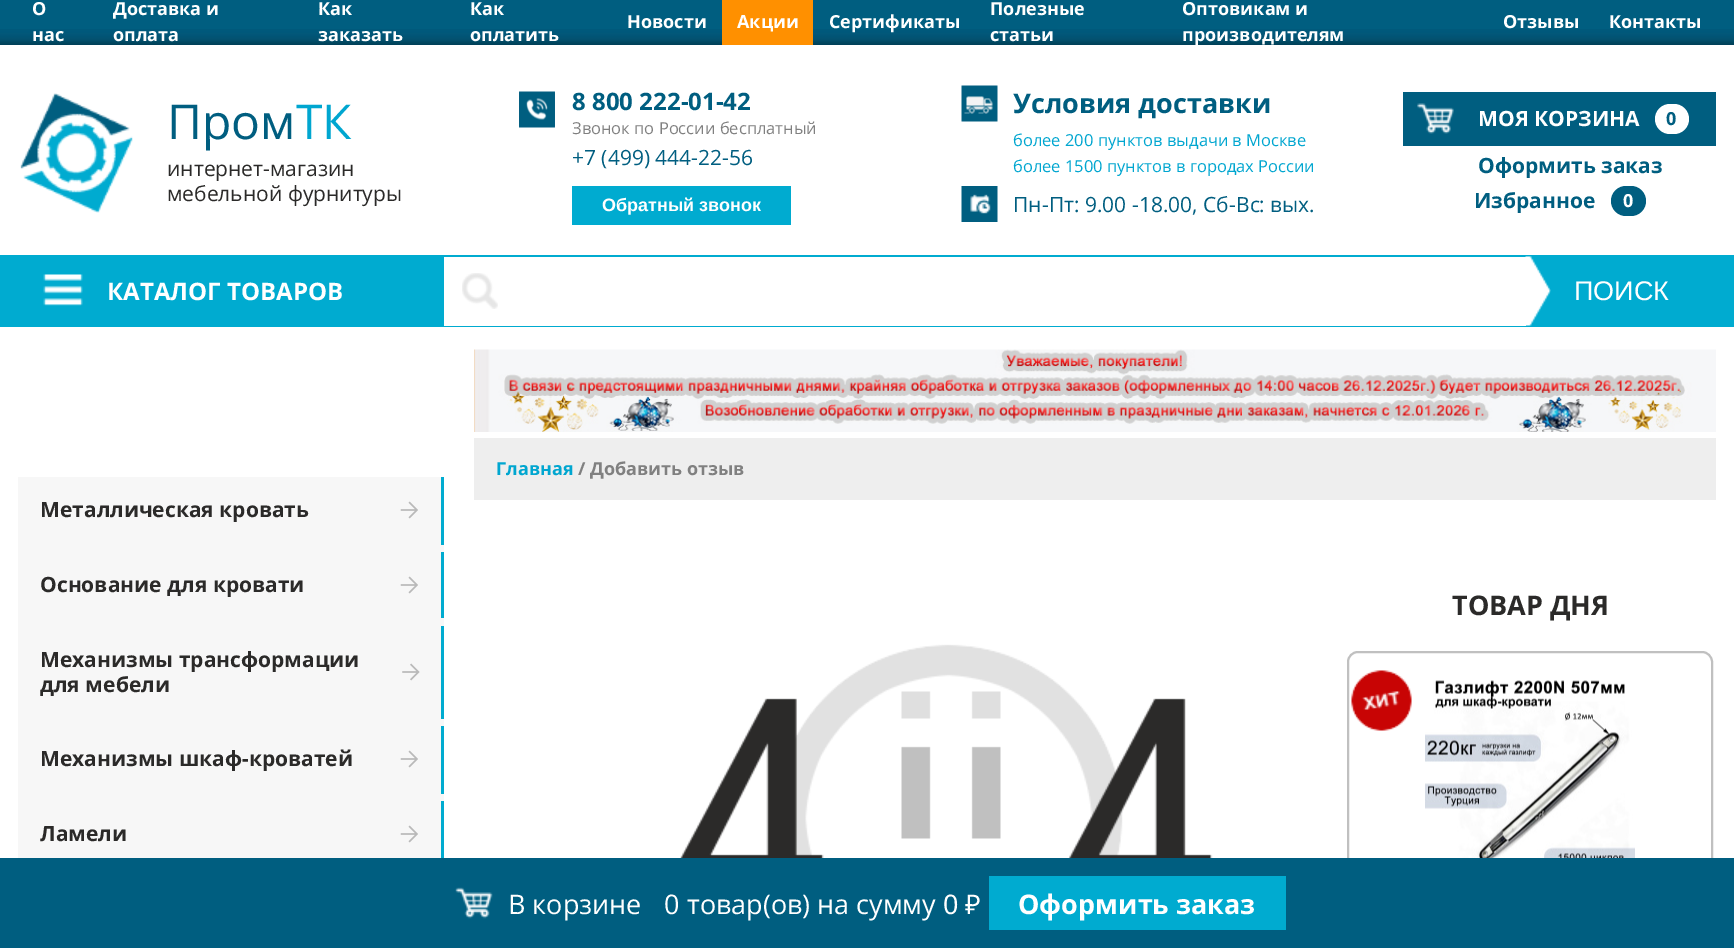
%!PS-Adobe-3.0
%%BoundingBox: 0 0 1734 948
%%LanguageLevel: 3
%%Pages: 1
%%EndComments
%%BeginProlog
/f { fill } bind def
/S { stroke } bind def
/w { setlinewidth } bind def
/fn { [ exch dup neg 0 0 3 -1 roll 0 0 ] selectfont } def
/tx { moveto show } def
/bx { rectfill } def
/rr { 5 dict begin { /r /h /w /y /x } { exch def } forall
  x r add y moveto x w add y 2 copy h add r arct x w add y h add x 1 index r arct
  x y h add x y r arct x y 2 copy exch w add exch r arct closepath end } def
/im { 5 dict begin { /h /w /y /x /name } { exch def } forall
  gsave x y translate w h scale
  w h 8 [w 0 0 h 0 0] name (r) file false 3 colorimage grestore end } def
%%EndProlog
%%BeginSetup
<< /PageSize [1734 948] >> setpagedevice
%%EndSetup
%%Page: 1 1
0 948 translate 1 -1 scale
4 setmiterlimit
1 setgray
0 0 1734 948 bx
0 0.369 0.502 setrgbcolor
0 0 1734 29 bx
(image0.raw) 0 29 1734 16 im
/OpenSans-Bold 18 fn
1 setgray
(О) 32 15 tx
(нас) 32 41 tx
(Доставка и) 113 15 tx
(оплата) 113 41 tx
(Как) 318 15 tx
(заказать) 318 41 tx
(Как) 470 15 tx
(оплатить) 470 41 tx
(Новости) 627 28 tx
1 0.565 0 setrgbcolor
722 0 91 45 bx
1 setgray
(Акции) 737 28 tx
(Сертификаты) 829 28 tx
(Полезные) 990 15 tx
(статьи) 990 41 tx
(Оптовикам и) 1182 15 tx
(производителям) 1182 41 tx
(Отзывы) 1503 28 tx
(Контакты) 1609 28 tx
(image1.raw) 20 93 113 120 im
/OpenSans-Regular 48 fn
0 0.369 0.502 setrgbcolor
(Пром) 167 139 tx
0 0.651 0.816 setrgbcolor
(ТК) 296 139 tx
/OpenSans-Regular 21 fn
0.169 0.165 0.161 setrgbcolor
(интернет) 167 176 tx
/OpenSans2-Regular 21 fn
(-) 263 176 tx
/OpenSans-Regular 21 fn
(магазин) 270 176 tx
(мебельной фурнитуры) 167 201 tx
(image2.raw) 519 91 36 37 im
/OpenSans-Bold 24 fn
0 0.369 0.502 setrgbcolor
(8 800 222-01-42) 572 110 tx
/OpenSans-Regular 16.5 fn
0.502 setgray
(Звонок по России бесплатный) 572 134 tx
/OpenSans2-Regular 21 fn
0 0.369 0.502 setrgbcolor
(+7 \(499\) 444-22-56) 572 165 tx
0 0.671 0.816 setrgbcolor
572 186 219 39 bx
/LiberationSans-Bold 18 fn
1 setgray
(Обратный звонок) 602 211 tx
(image3.raw) 961 85 37 37 im
/OpenSans-Bold 27 fn
0 0.369 0.502 setrgbcolor
(Условия доставки) 1013 113 tx
/OpenSans-Regular 16.5 fn
0 0.651 0.816 setrgbcolor
(более) 1013 146 tx
/OpenSans2-Regular 16.5 fn
(200) 1065 146 tx
/OpenSans-Regular 16.5 fn
(пунктов выдачи в Москве) 1098 146 tx
(более) 1013 172 tx
/OpenSans2-Regular 16.5 fn
(1500) 1065 172 tx
/OpenSans-Regular 16.5 fn
(пунктов в городах России) 1107 172 tx
(image4.raw) 961 186 37 36 im
/OpenSans-Regular 21 fn
0 0.369 0.502 setrgbcolor
(Пн) 1013 212 tx
/OpenSans2-Regular 21 fn
(-) 1042 212 tx
/OpenSans-Regular 21 fn
(Пт) 1049 212 tx
/OpenSans2-Regular 21 fn
(: 9.00 -18.00,) 1074 212 tx
/OpenSans-Regular 21 fn
(Сб) 1203 212 tx
/OpenSans2-Regular 21 fn
(-) 1229 212 tx
/OpenSans-Regular 21 fn
(Вс) 1236 212 tx
/OpenSans2-Regular 21 fn
(:) 1259 212 tx
/OpenSans-Regular 21 fn
(вых) 1270 212 tx
/OpenSans2-Regular 21 fn
(.) 1309 212 tx
1403 92 313 54 bx
(image5.raw) 1417 103 37 31 im
/OpenSans-Bold 21 fn
1 setgray
(МОЯ КОРЗИНА) 1478 126 tx
1655 104 34 30 15 rr f
/OpenSans-Bold 18 fn
0 0.369 0.502 setrgbcolor
(0) 1666 125 tx
/OpenSans-Bold 21 fn
(Оформить заказ) 1478 173 tx
(Избранное) 1474 208 tx
1611 186 35 30 15 rr f
/OpenSans-Bold 18 fn
1 setgray
(0) 1623 207 tx
0 0.671 0.816 setrgbcolor
0 255 1734 72 bx
(image6.raw) 43 274 40 32 im
/OpenSans-Bold 24 fn
1 setgray
(КАТАЛОГ ТОВАРОВ) 107 300 tx
(image8.raw) 1525 256 26 70 im
444 257 1082 69 bx
(image7.raw) 462 273 36 36 im
/LiberationSans-Regular 27 fn
(ПОИСК) 1574 300 tx
0.969 setgray
18 477 426 381 bx
0 0.671 0.816 setrgbcolor
441 477 3 68 bx
/OpenSans-Bold 21 fn
0.169 0.165 0.161 setrgbcolor
(Металлическая кровать) 40 517 tx
(image9.raw) 400 501 18 18 im
0 0.671 0.816 setrgbcolor
441 552 3 66 bx
0.169 0.165 0.161 setrgbcolor
(Основание для кровати) 40 592 tx
(image9.raw) 400 576 18 18 im
0 0.671 0.816 setrgbcolor
441 626 3 93 bx
0.169 0.165 0.161 setrgbcolor
(Механизмы трансформации) 40 667 tx
(image10.raw) 402 663 18 18 im
(для мебели) 40 692 tx
0 0.671 0.816 setrgbcolor
441 726 3 68 bx
0.169 0.165 0.161 setrgbcolor
(Механизмы шкаф-кроватей) 40 766 tx
(image9.raw) 400 750 18 18 im
0 0.671 0.816 setrgbcolor
441 801 3 57 bx
0.169 0.165 0.161 setrgbcolor
(Ламели) 40 841 tx
(image9.raw) 400 825 18 18 im
(image11.raw) 474 349 1242 83 im
0.933 setgray
474 438 1242 62 bx
/OpenSans-Bold 18 fn
0 0.651 0.816 setrgbcolor
(Главная) 496 475 tx
0.502 setgray
(/ Добавить отзыв) 578 475 tx
/OpenSans-Bold 27 fn
0.169 0.165 0.161 setrgbcolor
(ТОВАР ДНЯ) 1452 615 tx
0.753 setgray
2 w
1348 652 364 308 10 rr S
(image12.raw) 1351 670 61 61 im
(image13.raw) 1425 680 210 178 im
(image14.raw) 680 644 533 214 im
0 0.369 0.502 setrgbcolor
0 858 1734 90 bx
(image15.raw) 455 887 38 32 im
/OpenSans-Regular 27 fn
1 setgray
(В корзине) 508 914 tx
/OpenSans2-Regular 27 fn
(0) 664 914 tx
/OpenSans-Regular 27 fn
(товар) 687 914 tx
/OpenSans2-Regular 27 fn
(\() 763 914 tx
/OpenSans-Regular 27 fn
(ов) 771 914 tx
/OpenSans2-Regular 27 fn
(\)) 802 914 tx
/OpenSans-Regular 27 fn
(на сумму) 817 914 tx
/NotoSans-Regular 27 fn
(0 ₽) 943 914 tx
0 0.671 0.816 setrgbcolor
989 876 297 54 bx
/OpenSans-Bold 27 fn
1 setgray
(Оформить заказ) 1018 914 tx
showpage
%%EOF
